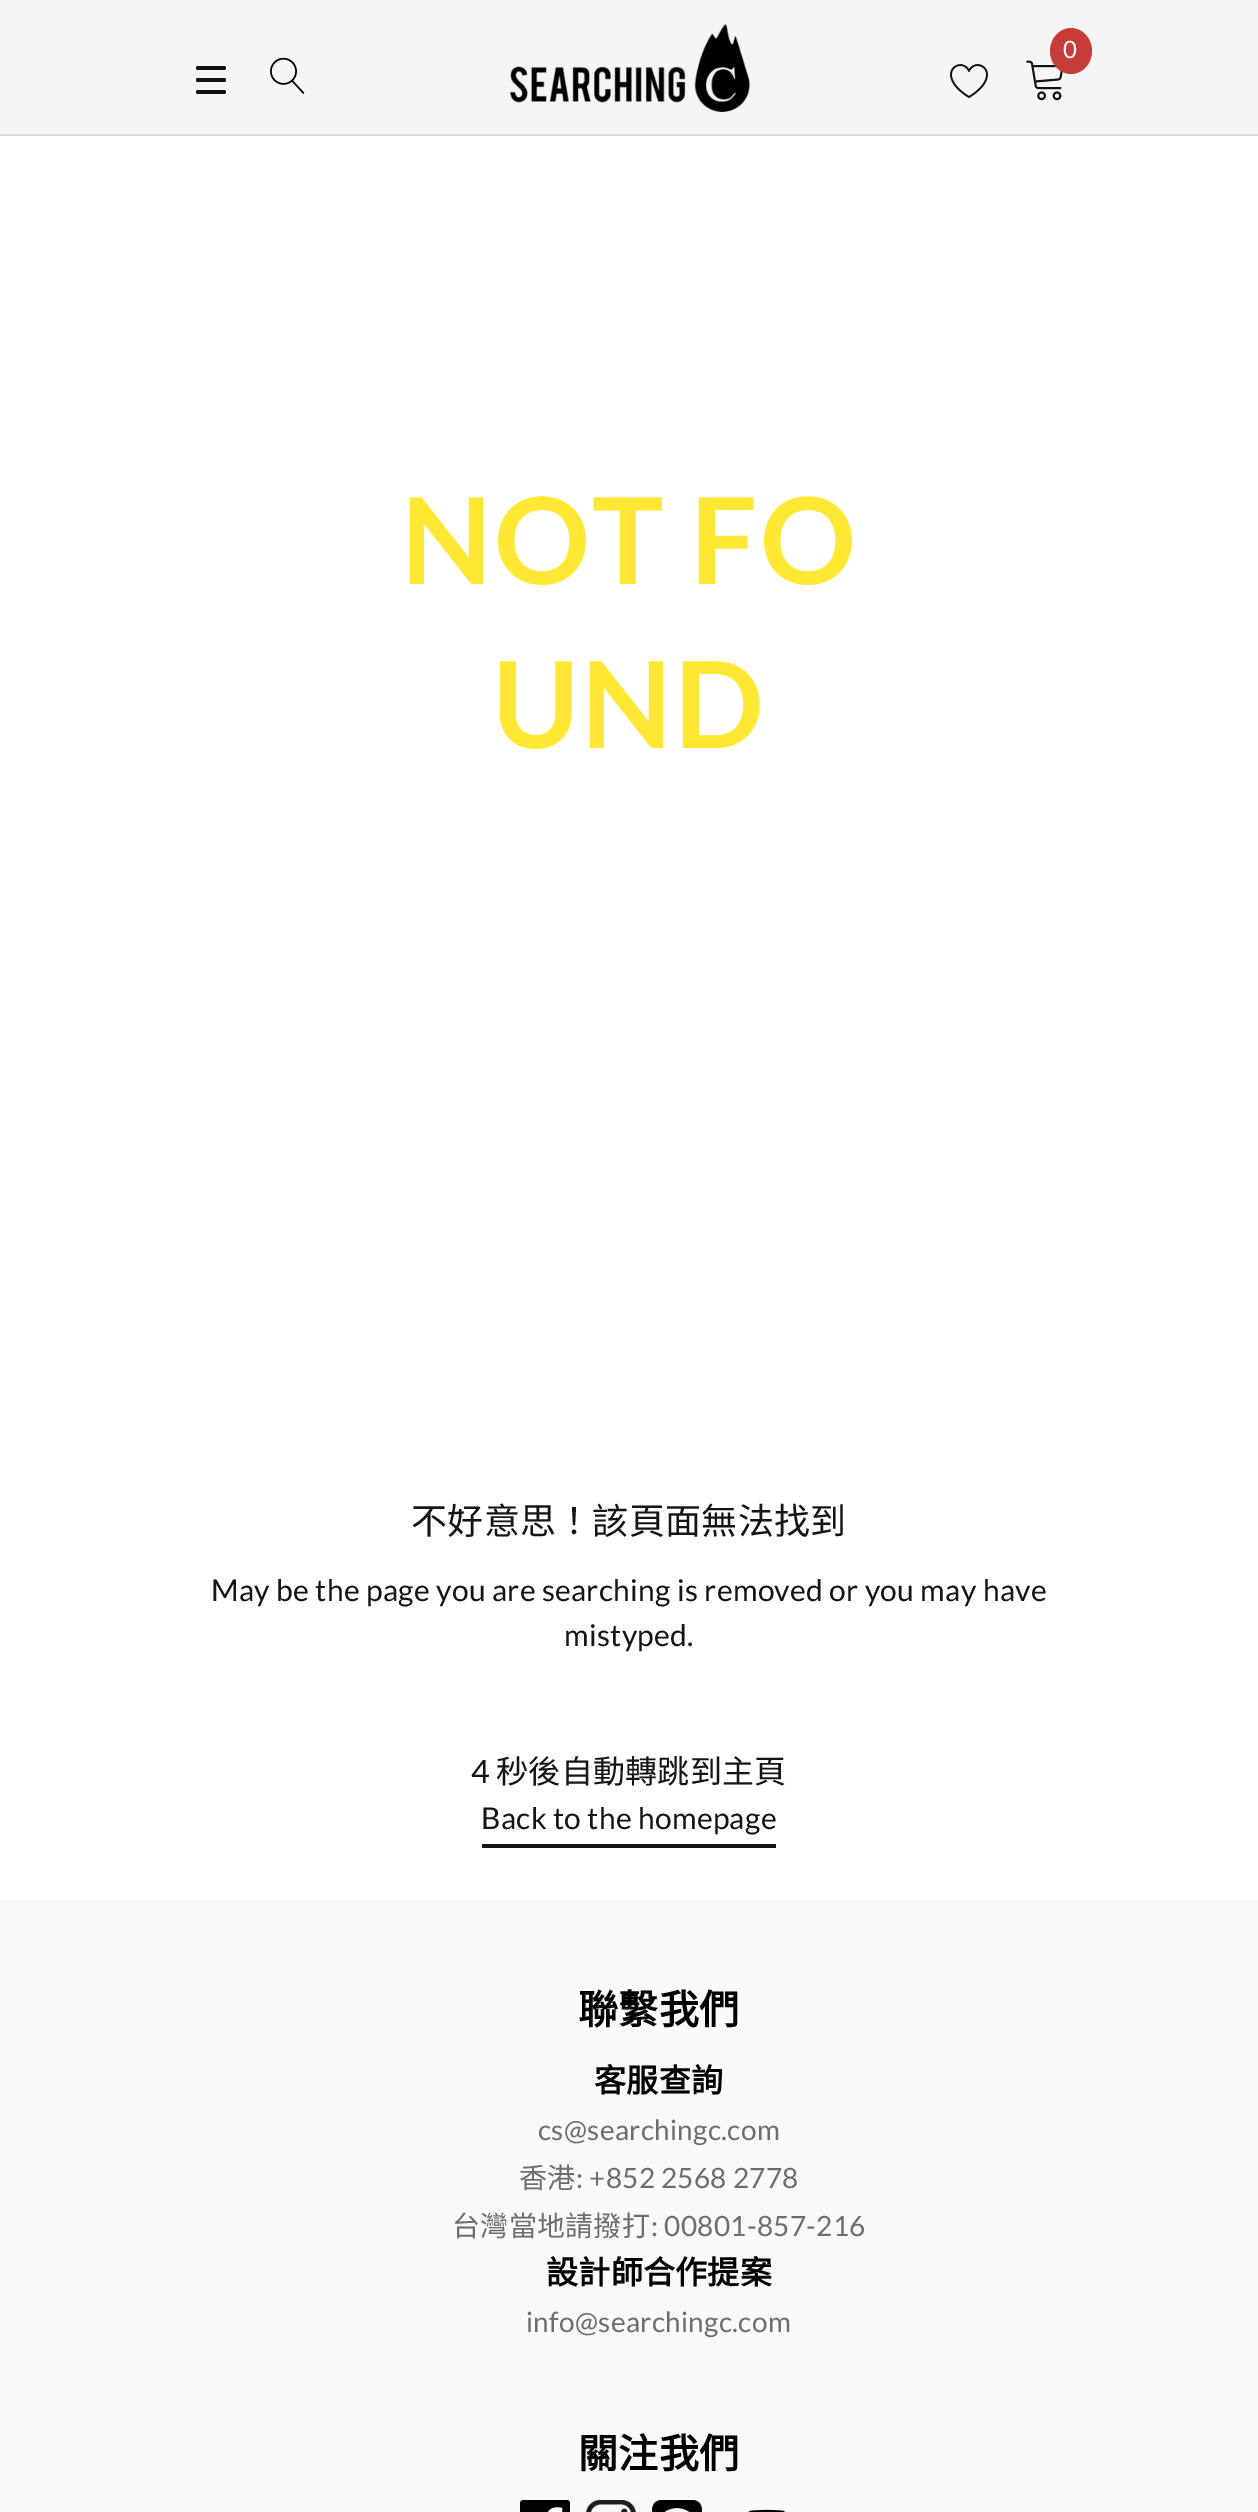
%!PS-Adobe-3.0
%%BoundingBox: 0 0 1258 2512
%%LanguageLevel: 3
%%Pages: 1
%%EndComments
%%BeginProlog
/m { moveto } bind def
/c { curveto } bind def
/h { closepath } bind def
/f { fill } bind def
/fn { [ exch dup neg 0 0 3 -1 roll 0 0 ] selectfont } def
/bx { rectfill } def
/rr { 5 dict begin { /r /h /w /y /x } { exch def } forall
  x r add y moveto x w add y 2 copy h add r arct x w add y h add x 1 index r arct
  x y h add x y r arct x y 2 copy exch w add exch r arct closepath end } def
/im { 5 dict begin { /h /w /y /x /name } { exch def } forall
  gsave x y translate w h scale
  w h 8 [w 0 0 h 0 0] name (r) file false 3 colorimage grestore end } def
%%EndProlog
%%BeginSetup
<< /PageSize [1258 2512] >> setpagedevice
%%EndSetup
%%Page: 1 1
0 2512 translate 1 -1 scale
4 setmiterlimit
1 setgray
0 0 1258 2512 bx
0.961 setgray
0 0 1258 134 bx
0.859 setgray
0 134 1258 2 bx
(image0.raw) 510 24 240 88 im
(image1.raw) 1026 60 37 41 im
0.78 0.231 0.22 setrgbcolor
1071 28 m 1082.5 28 1092 38.5 1092 51 c 1092 63.5 1082.5 74 1071 74 c 1059.5 74 1050 63.5 1050 51 c 1050 38.5 1059.5 28 1071 28 c h f
/Lato-Regular 24 fn
1 setgray
1063 58 m 0.3 0 (0) ashow
(image2.raw) 950 64 38 34 im
0.067 setgray
196 66 30 4 2 rr f
196 78 30 4 2 rr f
196 90 30 4 2 rr f
(image3.raw) 270 57 35 37 im
/Lato-Bold 120 fn
1 0.906 0.2 setrgbcolor
401 584 m 2 0 (NOT FO) ashow
492 748 m 2 0 (UND) ashow
/NotoSansCJKHK-Regular 36 fn
0.082 0.082 0.078 setrgbcolor
411 1534 m 0.3 0 (不好意思！該頁面無法找到) ashow
/Lato-Regular 30 fn
211 1601 m 0.3 0 (May be the page you are searching is removed or you may have) ashow
564 1646 m 0.3 0 (mistyped.) ashow
482 1844 294 4 bx
/Lato-Regular 32 fn
471 1783 m 0.3 0 (4) ashow
/NotoSansCJKHK-Regular 32 fn
496 1783 m 0.3 0 (秒後自動轉跳到主頁) ashow
/Lato-Regular 30 fn
481 1829 m 0.3 0 (Back to the homepage) ashow
0.976 setgray
0 1900 1258 612 bx
/NotoSansCJKHK-Bold 40 fn
0 setgray
578 2024 m 0.3 0 (聯繫我們) ashow
/NotoSansCJKHK-Bold 32 fn
594 2092 m 0.3 0 (客服查詢) ashow
/Lato-Regular 28 fn
0.427 setgray
538 2140 m 0.3 0 (cs@searchingc.com) ashow
/NotoSansCJKHK-Regular 28 fn
519 2188 m 0.3 0 (香港) ashow
/Lato-Regular 28 fn
576 2188 m 0.3 0 (: +852 2568 2778) ashow
/NotoSansCJKHK-Regular 28 fn
452 2236 m 0.3 0 (台灣當地請撥打) ashow
/Lato-Regular 28 fn
651 2236 m 0.3 0 (: 00801-857-216) ashow
/NotoSansCJKHK-Bold 32 fn
0 setgray
546 2284 m 0.3 0 (設計師合作提案) ashow
/Lato-Regular 28 fn
0.427 setgray
526 2332 m 0.3 0 (info@searchingc.com) ashow
/NotoSansCJKHK-Bold 40 fn
0 setgray
578 2468 m 0.3 0 (關注我們) ashow
(image4.raw) 520 2500 50 12 im
(image5.raw) 586 2500 50 12 im
(image6.raw) 652 2500 50 12 im
(image7.raw) 748 2509 37 3 im
showpage
%%EOF
